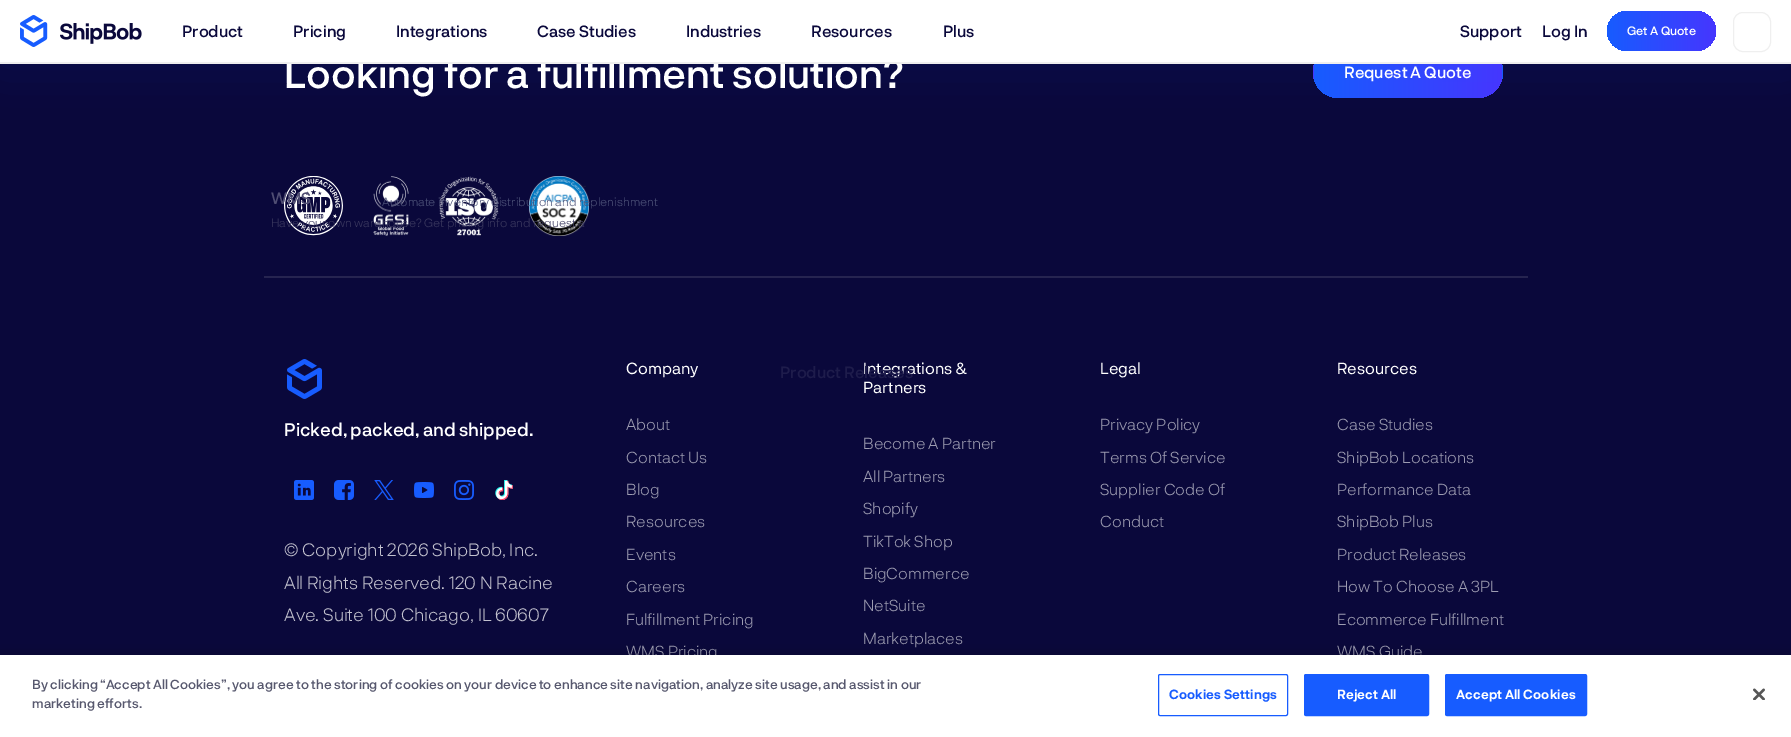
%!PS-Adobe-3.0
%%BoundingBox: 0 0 1791 737
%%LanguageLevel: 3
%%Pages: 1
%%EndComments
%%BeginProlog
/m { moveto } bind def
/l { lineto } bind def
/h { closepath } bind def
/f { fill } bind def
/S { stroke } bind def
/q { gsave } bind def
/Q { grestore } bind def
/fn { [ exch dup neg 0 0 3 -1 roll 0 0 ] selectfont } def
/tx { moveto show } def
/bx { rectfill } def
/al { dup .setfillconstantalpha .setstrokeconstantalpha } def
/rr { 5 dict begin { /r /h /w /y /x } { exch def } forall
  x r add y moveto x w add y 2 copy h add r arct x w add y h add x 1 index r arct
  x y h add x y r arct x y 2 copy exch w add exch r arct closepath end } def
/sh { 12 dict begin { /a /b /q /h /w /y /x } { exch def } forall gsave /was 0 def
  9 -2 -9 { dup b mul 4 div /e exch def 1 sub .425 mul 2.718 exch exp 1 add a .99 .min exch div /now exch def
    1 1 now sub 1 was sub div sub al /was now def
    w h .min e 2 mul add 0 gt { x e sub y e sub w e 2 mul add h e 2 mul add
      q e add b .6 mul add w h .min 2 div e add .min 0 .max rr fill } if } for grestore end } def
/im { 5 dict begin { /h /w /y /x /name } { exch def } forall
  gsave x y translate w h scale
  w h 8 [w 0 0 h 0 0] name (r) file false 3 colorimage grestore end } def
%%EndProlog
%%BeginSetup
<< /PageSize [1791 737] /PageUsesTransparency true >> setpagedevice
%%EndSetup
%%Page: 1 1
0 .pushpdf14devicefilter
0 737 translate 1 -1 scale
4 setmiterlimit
0.039 0.031 0.231 setrgbcolor
0 0 1791 737 bx
q
1313 46 190 52 26 rr clip newpath
q 1313 65 m 1314 65 l 1314 79 l 1313 79 l h clip newpath
<< /ShadingType 2 /ColorSpace /DeviceRGB /Coords [1126 72 1314 72] /Extend [true true] /Function << /FunctionType 2 /Domain [0 1] /C0 [0.09 0.361 1] /C1 [0.275 0.212 0.996] /N 1 >> >> shfill Q
q 1314 64 m 1502 64 l 1502 98 l 1314 98 l h clip newpath
<< /ShadingType 2 /ColorSpace /DeviceRGB /Coords [1314 72 1502 72] /Extend [true true] /Function << /FunctionType 2 /Domain [0 1] /C0 [0.09 0.361 1] /C1 [0.275 0.212 0.996] /N 1 >> >> shfill Q
q 1502 65 m 1503 65 l 1503 79 l 1502 79 l h clip newpath
<< /ShadingType 2 /ColorSpace /DeviceRGB /Coords [1502 72 1690 72] /Extend [true true] /Function << /FunctionType 2 /Domain [0 1] /C0 [0.09 0.361 1] /C1 [0.275 0.212 0.996] /N 1 >> >> shfill Q
Q
0.09 0.361 1 setrgbcolor
0 0 1791 64 0 25 0.1 sh
1 setgray
0 0 1791 62 bx
/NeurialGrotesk-Medium 40 fn
(Looking for a fulfillment solution?) 284 88 tx
0.937 setgray
0 62 1791 2 bx
(image0.raw) 20 15 122 32 im
/NeurialGrotesk-Medium 16 fn
0.039 0.031 0.231 setrgbcolor
(Product) 182 37 tx
(image2.raw) 373 176 36 60 im
(image3.raw) 439 176 60 60 im
(image4.raw) 529 176 60 60 im
/NeurialGrotesk-Light 12 fn
0.306 0.325 0.475 setrgbcolor
(Automate inventory distribution and replenishment) 382 206 tx
/NeurialGrotesk-Medium 16 fn
0.039 0.031 0.231 setrgbcolor
(Pricing) 293 37 tx
(image1.raw) 284 176 59 60 im
0.314 0.306 0.451 setrgbcolor
(WMS) 271 204 tx
/NeurialGrotesk-Light 12 fn
0.231 0.224 0.373 setrgbcolor
(Have your own warehouse? Get pricing info and request a) 271 227 tx
/NeurialGrotesk-Medium 16 fn
0.039 0.031 0.231 setrgbcolor
(Integrations) 396 37 tx
(Case Studies) 537 37 tx
(Industries) 686 37 tx
(Resources) 811 37 tx
/NeurialGrotesk-Regular 16 fn
1 setgray
(Integrations &) 863 374 tx
/NeurialGrotesk-Medium 16 fn
0.118 0.11 0.294 setrgbcolor
(Product Releases) 780 378 tx
0.039 0.031 0.231 setrgbcolor
(Plus) 943 37 tx
(Support) 1460 37 tx
(Log In) 1542 37 tx
q 1607 11 109 40 20 rr clip newpath
<< /ShadingType 2 /ColorSpace /DeviceRGB /Coords [1607 31 1716 31] /Extend [true true] /Function << /FunctionType 2 /Domain [0 1] /C0 [0.09 0.361 1] /C1 [0.275 0.212 0.996] /N 1 >> >> shfill Q
/NeurialGrotesk-Medium 12 fn
1 setgray
(Get A Quote) 1627 35 tx
0.937 setgray
1733.5 12.5 37 39 9.5 rr S
0.149 0.141 0.314 setrgbcolor
264 276 1264 2 bx
/NeurialGrotesk-Medium 16 fn
1 setgray
(Request A Quote) 1344 78 tx
(image5.raw) 287 359 35 40 im
/NeurialGrotesk-Medium 18 fn
(Picked, packed, and shipped.) 284 436 tx
(image6.raw) 294 480 20 20 im
(image7.raw) 334 480 20 20 im
(image8.raw) 374 480 20 20 im
(image9.raw) 414 482 20 16 im
(image10.raw) 454 480 20 20 im
(image11.raw) 495 480 18 20 im
/NeurialGrotesk-Light 18 fn
0.761 0.757 0.808 setrgbcolor
(© Copyright 2026 ShipBob, Inc.) 284 556 tx
(All Rights Reserved. 120 N Racine) 284 589 tx
(Ave. Suite 100 Chicago, IL 60607) 284 621 tx
/NeurialGrotesk-Regular 16 fn
1 setgray
(Company) 626 374 tx
/NeurialGrotesk-Light 16 fn
0.616 0.612 0.694 setrgbcolor
(About) 626 430 tx
(Contact Us) 626 463 tx
(Blog) 626 495 tx
(Resources) 626 527 tx
(Events) 626 560 tx
(Careers) 626 592 tx
(Fulfillment Pricing) 626 625 tx
(WMS Pricing) 626 657 tx
/NeurialGrotesk-Regular 16 fn
1 setgray
(Partners) 863 393 tx
/NeurialGrotesk-Light 16 fn
0.616 0.612 0.694 setrgbcolor
(Become A Partner) 863 449 tx
(All Partners) 863 482 tx
(Shopify) 863 514 tx
(TikTok Shop) 863 547 tx
(BigCommerce) 863 579 tx
(NetSuite) 863 611 tx
(Marketplaces) 863 644 tx
/NeurialGrotesk-Regular 16 fn
1 setgray
(Legal) 1100 374 tx
/NeurialGrotesk-Light 16 fn
0.616 0.612 0.694 setrgbcolor
(Privacy Policy) 1100 430 tx
(Terms Of Service) 1100 463 tx
(Supplier Code Of) 1100 495 tx
(Conduct) 1100 527 tx
/NeurialGrotesk-Regular 16 fn
1 setgray
(Resources) 1337 374 tx
/NeurialGrotesk-Light 16 fn
0.616 0.612 0.694 setrgbcolor
(Case Studies) 1337 430 tx
(ShipBob Locations) 1337 463 tx
(Performance Data) 1337 495 tx
(ShipBob Plus) 1337 527 tx
(Product Releases) 1337 560 tx
(How To Choose A 3PL) 1337 592 tx
(Ecommerce Fulfillment) 1337 625 tx
(WMS Guide) 1337 657 tx
0 setgray
0 655 1791 82 0 9 0.2 sh
1 setgray
0 655 1791 82 bx
/NeurialGrotesk-Medium 13 fn
0.341 0.345 0.431 setrgbcolor
(By clicking “Accept All Cookies”, you agree to the storing of cookies on your device to enhance site navigation, analyze site usage, and assist in our) 32 689 tx
(marketing efforts.) 32 708 tx
0.09 0.361 1 setrgbcolor
1158.5 674.5 129 41 1.5 rr S
/NeurialGrotesk-Bold 13 fn
1169 699 m 0.1 0 (Cookies Settings) ashow
1304.5 674.5 124 41 1.5 rr q f Q
S
1 setgray
1337 699 m 0.1 0 (Reject All) ashow
0.09 0.361 1 setrgbcolor
1445.5 674.5 141 41 1.5 rr q f Q
S
1 setgray
1456 699 m 0.1 0 (Accept All Cookies) ashow
(image12.raw) 1753 688 12 12 im
.poppdf14devicefilter showpage
%%EOF
